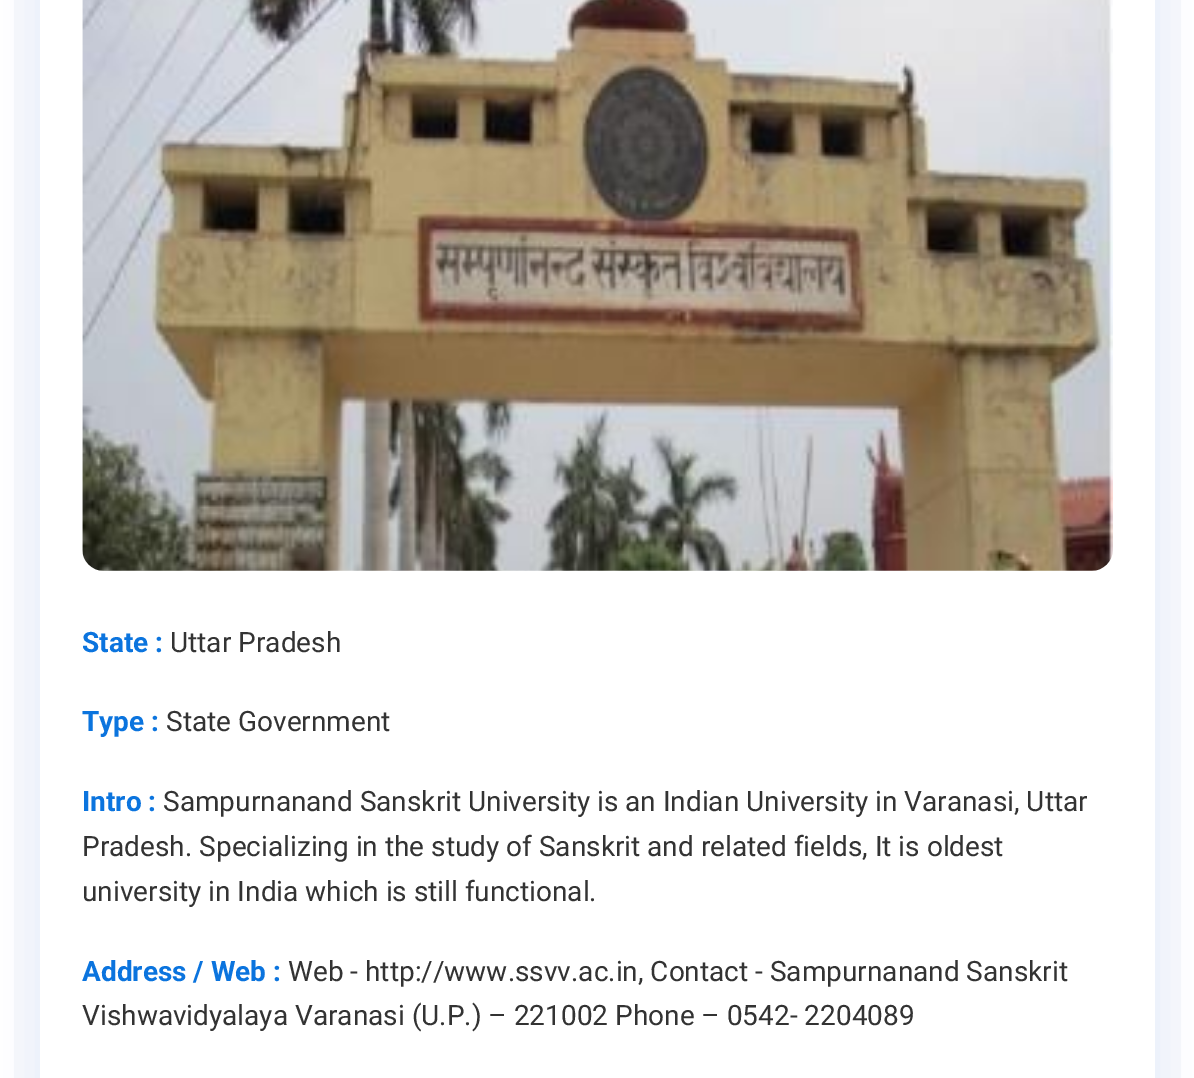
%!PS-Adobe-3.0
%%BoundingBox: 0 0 1194 1078
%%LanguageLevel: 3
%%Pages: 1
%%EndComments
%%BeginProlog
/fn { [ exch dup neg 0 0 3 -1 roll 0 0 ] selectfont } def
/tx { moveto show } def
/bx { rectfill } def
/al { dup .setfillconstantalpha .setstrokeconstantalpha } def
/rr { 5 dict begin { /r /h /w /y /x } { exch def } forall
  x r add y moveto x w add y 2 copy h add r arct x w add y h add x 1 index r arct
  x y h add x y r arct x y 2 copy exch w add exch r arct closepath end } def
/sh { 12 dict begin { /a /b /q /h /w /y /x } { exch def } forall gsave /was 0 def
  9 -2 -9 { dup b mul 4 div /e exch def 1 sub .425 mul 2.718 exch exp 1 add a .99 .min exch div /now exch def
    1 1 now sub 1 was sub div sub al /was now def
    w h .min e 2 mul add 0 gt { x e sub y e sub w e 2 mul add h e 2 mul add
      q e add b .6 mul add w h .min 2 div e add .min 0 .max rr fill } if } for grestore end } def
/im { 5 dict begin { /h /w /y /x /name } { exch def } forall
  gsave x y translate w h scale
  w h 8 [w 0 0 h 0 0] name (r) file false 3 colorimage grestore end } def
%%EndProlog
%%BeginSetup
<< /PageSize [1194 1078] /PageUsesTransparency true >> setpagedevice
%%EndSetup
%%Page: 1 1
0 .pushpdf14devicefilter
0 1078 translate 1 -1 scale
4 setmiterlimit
1 setgray
0 0 1194 1078 bx
0.973 0.976 0.984 setrgbcolor
14 0 1167 1078 bx
0.043 0.455 0.871 setrgbcolor
40 -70 1115 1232 21 21 0.08 sh
1 setgray
40 0 1115 1078 bx
(image0.raw) 82 0 1031 571 im
/Roboto-Bold 28 fn
0.043 0.455 0.871 setrgbcolor
(State :) 82 652 tx
/Roboto-Regular 28 fn
0.2 setgray
(Uttar Pradesh) 170 652 tx
/Roboto-Bold 28 fn
0.043 0.455 0.871 setrgbcolor
(Type :) 82 731 tx
/Roboto-Regular 28 fn
0.2 setgray
(State Government) 166 731 tx
/Roboto-Bold 28 fn
0.043 0.455 0.871 setrgbcolor
(Intro :) 82 811 tx
/Roboto-Regular 28 fn
0.2 setgray
(Sampurnanand Sanskrit University is an Indian University in Varanasi, Uttar) 163 811 tx
(Pradesh. Specializing in the study of Sanskrit and related fields, It is oldest) 82 856 tx
(university in India which is still functional.) 82 901 tx
/Roboto-Bold 28 fn
0.043 0.455 0.871 setrgbcolor
(Address / Web :) 82 981 tx
/Roboto-Regular 28 fn
0.2 setgray
(Web - http://www.ssvv.ac.in, Contact - Sampurnanand Sanskrit) 288 981 tx
(Vishwavidyalaya Varanasi \(U.P.\) – 221002 Phone – 0542- 2204089) 82 1025 tx
.poppdf14devicefilter showpage
%%EOF
